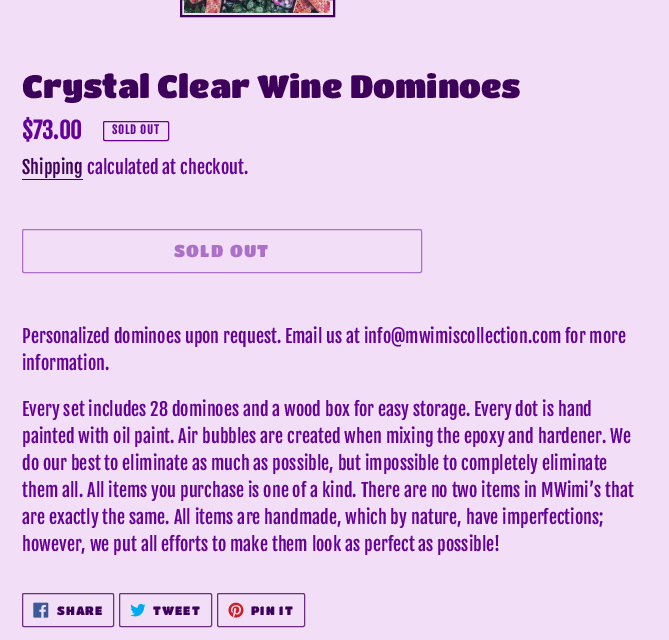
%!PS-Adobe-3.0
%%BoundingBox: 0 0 669 640
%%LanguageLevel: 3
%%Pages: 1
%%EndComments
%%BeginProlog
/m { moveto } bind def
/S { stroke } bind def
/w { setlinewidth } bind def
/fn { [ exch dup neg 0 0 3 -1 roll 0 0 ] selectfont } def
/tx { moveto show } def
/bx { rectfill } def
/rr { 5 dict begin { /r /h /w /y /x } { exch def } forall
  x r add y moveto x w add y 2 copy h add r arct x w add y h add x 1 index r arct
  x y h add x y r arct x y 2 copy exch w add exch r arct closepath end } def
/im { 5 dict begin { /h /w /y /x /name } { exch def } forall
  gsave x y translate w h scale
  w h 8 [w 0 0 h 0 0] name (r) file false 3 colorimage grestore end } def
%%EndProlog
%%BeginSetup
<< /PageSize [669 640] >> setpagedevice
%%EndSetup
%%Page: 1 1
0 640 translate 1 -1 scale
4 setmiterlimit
0.949 0.875 0.969 setrgbcolor
0 0 669 640 bx
0.239 0 0.357 setrgbcolor
2 w
181 -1 153 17 rectstroke
(image0.raw) 184 0 146 13 im
/TitanOne-Regular 32 fn
(Crystal Clear Wine Dominoes) 22 98 tx
/FjallaOne-Bold 22.5 fn
0.4 0.004 0.6 setrgbcolor
($73.00) 22 139 tx
1 w
103.5 121.5 65 19 1.5 rr S
/FjallaOne-Bold 11.25 fn
112 134 m 1 0 (SOLD OUT) ashow
/FjallaOne-Regular 18 fn
0.239 0 0.357 setrgbcolor
(Shipping) 22 174 tx
22 179 61 1 bx
0.4 0.004 0.6 setrgbcolor
(calculated at checkout.) 87 174 tx
0.675 0.439 0.784 setrgbcolor
22.5 229.5 399 43 1.5 rr S
/TitanOne-Regular 17 fn
174 257 m 1.25 0 (SOLD OUT) ashow
/FjallaOne-Regular 18 fn
0.4 0.004 0.6 setrgbcolor
(Personalized dominoes upon request. Email us at info@mwimiscollection.com for more) 22 343 tx
(information.) 22 370 tx
(Every set includes 28 dominoes and a wood box for easy storage. Every dot is hand) 22 416 tx
(painted with oil paint. Air bubbles are created when mixing the epoxy and hardener. We) 22 443 tx
(do our best to eliminate as much as possible, but impossible to completely eliminate) 22 470 tx
(them all. All items you purchase is one of a kind. There are no two items in MWimi’s that) 22 497 tx
(are exactly the same. All items are handmade, which by nature, have imperfections;) 22 524 tx
(however, we put all efforts to make them look as perfect as possible!) 22 551 tx
0.424 0.18 0.518 setrgbcolor
22.5 593.5 91 33 1.5 rr S
(image1.raw) 33 602 16 16 im
/TitanOne-Regular 12 fn
0.239 0 0.357 setrgbcolor
57 615 m 1 0 (SHARE) ashow
0.424 0.18 0.518 setrgbcolor
119.5 593.5 92 33 1.5 rr S
(image2.raw) 130 603 16 14 im
0.239 0 0.357 setrgbcolor
153 615 m 1 0 (TWEET) ashow
0.424 0.18 0.518 setrgbcolor
217.5 593.5 87 33 1.5 rr S
(image3.raw) 228 602 16 16 im
0.239 0 0.357 setrgbcolor
251 615 m 1 0 (PIN IT) ashow
showpage
%%EOF
